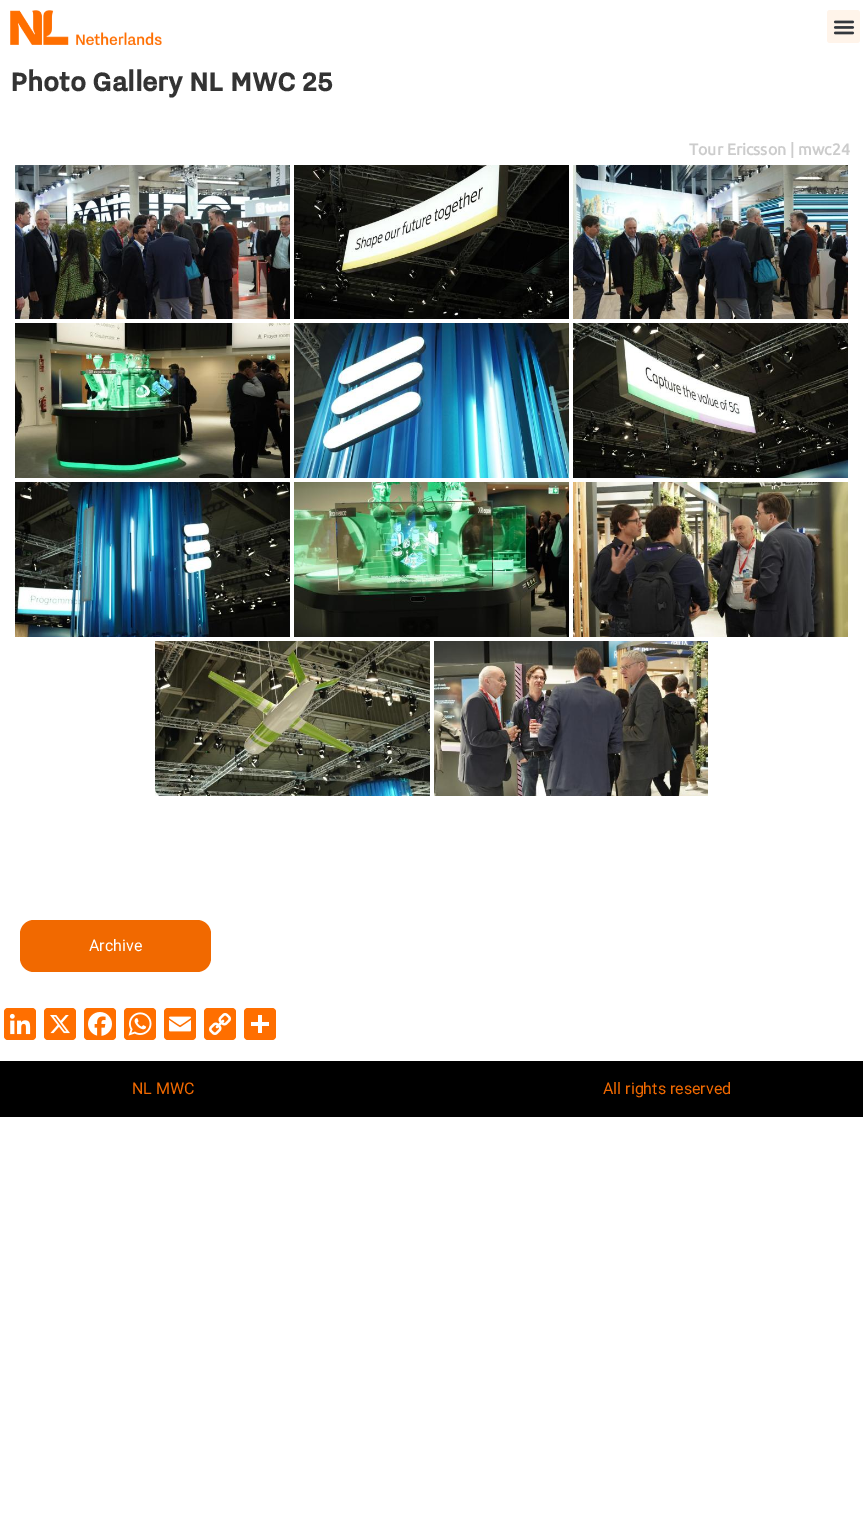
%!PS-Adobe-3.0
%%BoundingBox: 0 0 863 1515
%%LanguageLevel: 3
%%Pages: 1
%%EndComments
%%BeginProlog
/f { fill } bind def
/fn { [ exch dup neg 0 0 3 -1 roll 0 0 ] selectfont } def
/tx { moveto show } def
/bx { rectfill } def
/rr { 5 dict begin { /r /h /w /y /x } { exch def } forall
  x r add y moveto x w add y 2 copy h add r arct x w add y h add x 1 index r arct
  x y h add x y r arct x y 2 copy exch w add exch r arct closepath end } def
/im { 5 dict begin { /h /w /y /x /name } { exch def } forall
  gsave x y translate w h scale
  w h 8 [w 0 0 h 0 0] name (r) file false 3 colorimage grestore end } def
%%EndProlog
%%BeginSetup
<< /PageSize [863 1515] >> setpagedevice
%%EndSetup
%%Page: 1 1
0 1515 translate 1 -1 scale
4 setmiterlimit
1 setgray
0 0 863 1515 bx
(image0.raw) 10 10 152 35 im
1 0.957 0.918 setrgbcolor
827 10 33 33 3 rr f
(image1.raw) 833 20 22 15 im
/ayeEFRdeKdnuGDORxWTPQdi-Bold 32 fn
0.2 setgray
(Photo Gallery NL MWC 25) 10 91 tx
/Ubuntu-Bold 16 fn
0.8 setgray
(Tour Ericsson | mwc24) 689 155 tx
(image2.raw) 15 165 275 154 im
(image3.raw) 294 165 275 154 im
(image4.raw) 573 165 275 154 im
(image5.raw) 15 323 275 155 im
(image6.raw) 294 323 275 155 im
(image7.raw) 573 323 275 155 im
(image8.raw) 15 482 275 155 im
(image9.raw) 294 482 275 155 im
(image10.raw) 573 482 275 155 im
(image11.raw) 155 641 275 155 im
(image12.raw) 434 641 274 155 im
0.945 0.412 0 setrgbcolor
20 920 191 52 14 rr f
/Roboto-Regular 16 fn
1 setgray
(Archive) 89 951 tx
1 0.435 0 setrgbcolor
4 1008 32 32 4 rr f
(image13.raw) 9 1013 22 22 im
44 1008 32 32 4 rr f
(image14.raw) 50 1015 20 19 im
84 1008 32 32 4 rr f
(image15.raw) 88 1012 24 24 im
124 1008 32 32 4 rr f
(image16.raw) 128 1012 24 24 im
164 1008 32 32 4 rr f
(image17.raw) 169 1016 22 16 im
204 1008 32 32 4 rr f
(image18.raw) 209 1013 22 22 im
244 1008 32 32 4 rr f
1 setgray
258 1015 4 18 bx
251 1022 18 4 bx
0 setgray
0 1061 863 56 bx
0.945 0.412 0 setrgbcolor
(NL MWC) 132 1094 tx
(All rights reserved) 603 1094 tx
showpage
%%EOF
